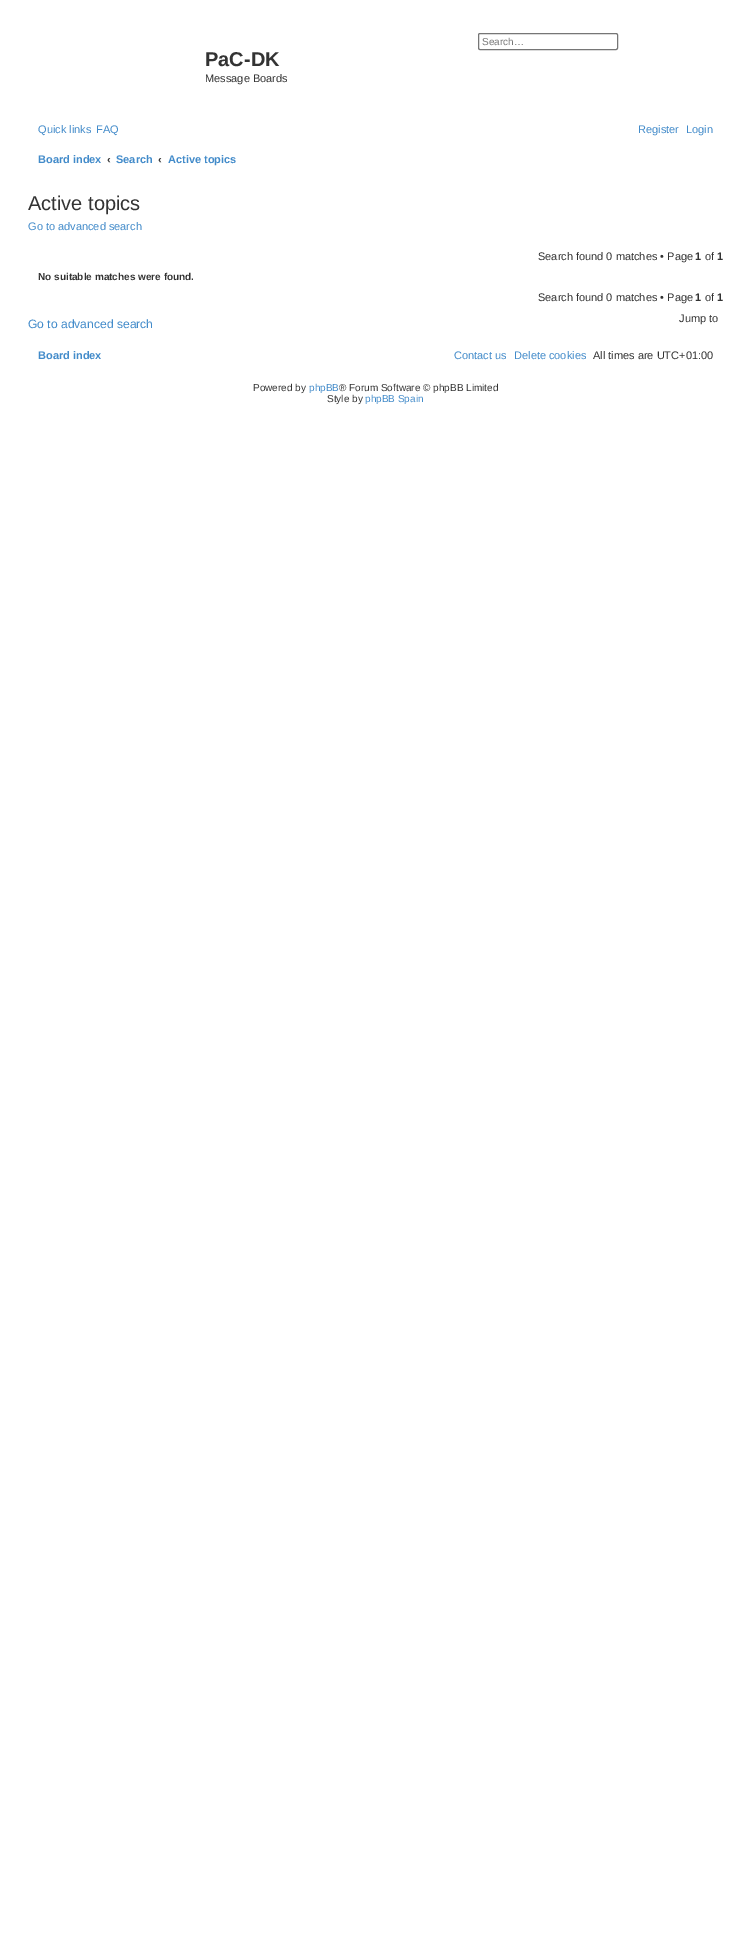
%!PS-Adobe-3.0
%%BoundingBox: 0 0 751 1956
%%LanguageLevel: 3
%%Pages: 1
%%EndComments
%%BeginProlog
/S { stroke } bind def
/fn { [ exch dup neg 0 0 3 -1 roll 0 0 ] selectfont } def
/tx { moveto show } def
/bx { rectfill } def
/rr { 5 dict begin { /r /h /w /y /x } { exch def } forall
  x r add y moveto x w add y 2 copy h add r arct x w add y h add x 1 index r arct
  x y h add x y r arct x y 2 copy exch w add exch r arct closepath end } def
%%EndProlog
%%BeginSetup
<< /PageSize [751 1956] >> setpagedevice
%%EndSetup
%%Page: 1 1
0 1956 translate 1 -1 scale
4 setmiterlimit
1 setgray
0 0 751 1956 bx
0.463 setgray
478.5 33.5 139 16 1.5 rr S
/LiberationSans-Regular 10 fn
0.459 setgray
(Search…) 482 45 tx
/LiberationSans-Bold 20 fn
0.2 setgray
(PaC-DK) 205 66 tx
/LiberationSans-Regular 11 fn
(Message Boards) 205 82 tx
0.259 0.545 0.792 setrgbcolor
(Quick links) 38 133 tx
(FAQ) 96 133 tx
(Register) 638 133 tx
(Login) 686 133 tx
/LiberationSans-Bold 11 fn
(Board index) 38 163 tx
0.2 setgray
(‹) 107 163 tx
0.259 0.545 0.792 setrgbcolor
(Search) 116 163 tx
0.2 setgray
(‹) 158 163 tx
0.259 0.545 0.792 setrgbcolor
(Active topics) 168 163 tx
/LiberationSans-Regular 20 fn
0.2 setgray
(Active topics) 28 210 tx
/LiberationSans-Regular 11 fn
0.259 0.545 0.792 setrgbcolor
(Go to advanced search) 28 230 tx
0.2 setgray
(Search found 0 matches • Page) 538 260 tx
/LiberationSans-Bold 11 fn
(1) 695 260 tx
/LiberationSans-Regular 11 fn
(of) 705 260 tx
/LiberationSans-Bold 11 fn
(1) 717 260 tx
/LiberationSans-Bold 10 fn
(No suitable matches were found.) 38 280 tx
/LiberationSans-Regular 11 fn
(Search found 0 matches • Page) 538 301 tx
/LiberationSans-Bold 11 fn
(1) 695 301 tx
/LiberationSans-Regular 11 fn
(of) 705 301 tx
/LiberationSans-Bold 11 fn
(1) 717 301 tx
/LiberationSans-Regular 12.1 fn
0.259 0.545 0.792 setrgbcolor
(Go to advanced search) 28 328 tx
/LiberationSans-Regular 11 fn
0.2 setgray
(Jump to) 679 322 tx
/LiberationSans-Bold 11 fn
0.259 0.545 0.792 setrgbcolor
(Board index) 38 359 tx
/LiberationSans-Regular 11 fn
(Contact us) 454 359 tx
(Delete cookies) 514 359 tx
0.2 setgray
(All times are UTC+01:00) 593 359 tx
/LiberationSans-Regular 10 fn
(Powered by) 253 391 tx
0.259 0.545 0.792 setrgbcolor
(phpBB) 309 391 tx
0.2 setgray
(® Forum Software © phpBB Limited) 339 391 tx
(Style by) 327 402 tx
0.259 0.545 0.792 setrgbcolor
(phpBB Spain) 365 402 tx
showpage
%%EOF
